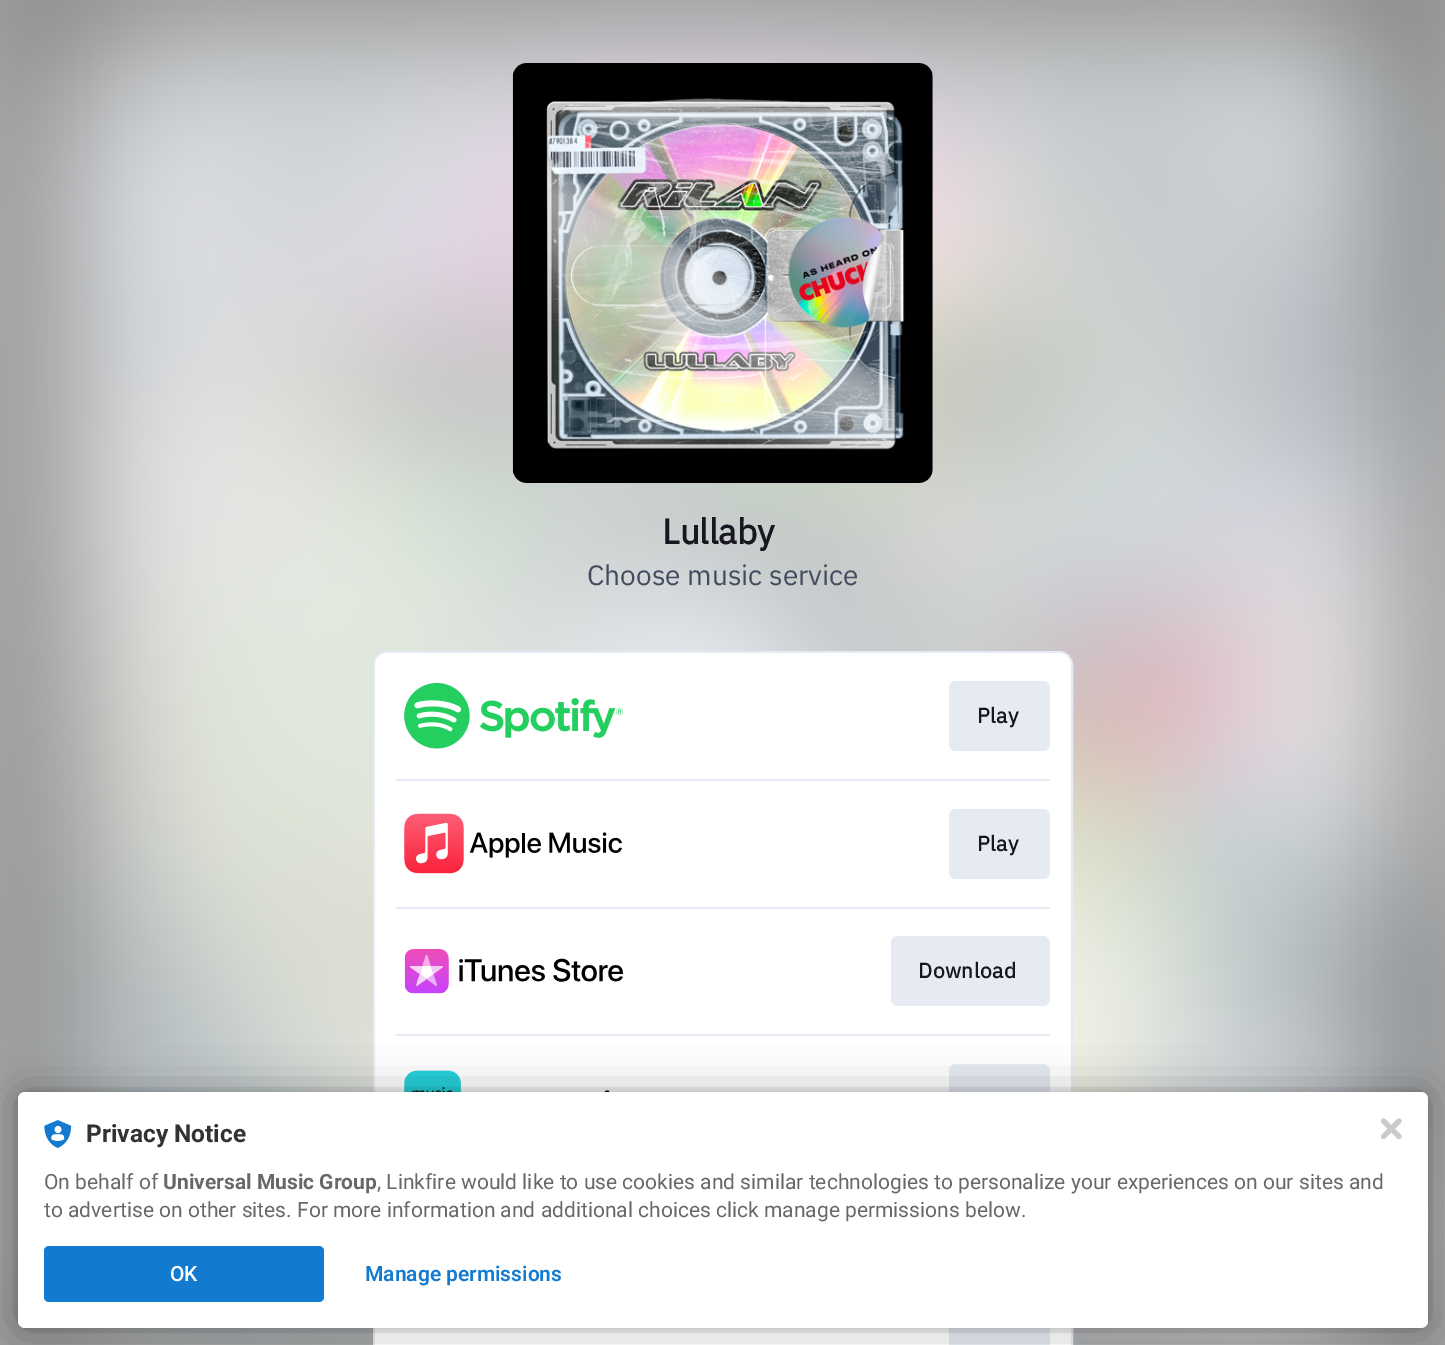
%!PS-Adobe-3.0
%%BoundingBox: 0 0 1445 1345
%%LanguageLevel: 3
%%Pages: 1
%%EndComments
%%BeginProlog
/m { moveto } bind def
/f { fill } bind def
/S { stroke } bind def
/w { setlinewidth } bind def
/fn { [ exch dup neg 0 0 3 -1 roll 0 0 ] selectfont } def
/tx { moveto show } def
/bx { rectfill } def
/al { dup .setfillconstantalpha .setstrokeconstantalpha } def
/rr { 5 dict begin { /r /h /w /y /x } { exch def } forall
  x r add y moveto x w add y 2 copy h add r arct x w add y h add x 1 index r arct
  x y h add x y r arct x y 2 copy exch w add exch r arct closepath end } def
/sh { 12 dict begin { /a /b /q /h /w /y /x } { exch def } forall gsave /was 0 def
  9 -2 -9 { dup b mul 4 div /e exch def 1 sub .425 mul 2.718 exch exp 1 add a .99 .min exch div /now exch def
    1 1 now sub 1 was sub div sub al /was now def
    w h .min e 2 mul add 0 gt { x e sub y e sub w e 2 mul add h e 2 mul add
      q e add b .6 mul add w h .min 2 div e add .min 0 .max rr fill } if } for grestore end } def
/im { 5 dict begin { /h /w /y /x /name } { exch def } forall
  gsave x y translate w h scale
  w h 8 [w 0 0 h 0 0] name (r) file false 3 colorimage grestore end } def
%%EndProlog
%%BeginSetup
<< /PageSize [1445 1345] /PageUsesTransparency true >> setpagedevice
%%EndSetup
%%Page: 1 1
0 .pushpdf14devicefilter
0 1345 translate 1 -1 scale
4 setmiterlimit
1 setgray
0 0 1445 1345 bx
(image0.raw) 0 0 1445 1345 im
(image1.raw) 512 63 421 420 im
/IBMPlexSans-Bold 35 fn
0.094 0.09 0.129 setrgbcolor
(Lullaby) 662 544 tx
/IBMPlexSans-Regular 28 fn
0.271 0.294 0.373 setrgbcolor
(Choose music service) 587 585 tx
0.902 0.918 0.949 setrgbcolor
2 w
374 652 698 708 13 rr S
1 setgray
375 653 696 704 12 rr f
(image2.raw) 404 683 219 66 im
0.902 0.918 0.949 setrgbcolor
949 681 101 70 7 rr f
/IBMPlexSans-Bold 21 fn
0.094 0.09 0.129 setrgbcolor
977 723 m 0.5 0 (Play) ashow
0.902 0.918 0.949 setrgbcolor
396 779 654 2 bx
(image3.raw) 404 813 218 61 im
949 809 101 70 7 rr f
0.094 0.09 0.129 setrgbcolor
977 851 m 0.5 0 (Play) ashow
0.902 0.918 0.949 setrgbcolor
396 907 654 2 bx
(image4.raw) 404 949 219 45 im
891 936 159 70 7 rr f
0.094 0.09 0.129 setrgbcolor
918 978 m 0.5 0 (Download) ashow
0.902 0.918 0.949 setrgbcolor
396 1034 654 2 bx
(image5.raw) 404 1070 206 22 im
949 1064 101 70 7 rr f
949 1328 101 17 bx
0 setgray
18 1092 1410 236 7 3.5 0.12 sh
18 1092 1410 236 7 21 0.3 sh
1 setgray
18 1092 1410 236 7 rr f
(image6.raw) 44 1120 28 28 im
/Roboto-Bold 24.5 fn
0.196 setgray
(Privacy Notice) 86 1142 tx
/Roboto-Regular 21 fn
0.408 setgray
(On behalf of) 44 1189 tx
/Roboto-Bold 21 fn
(Universal Music Group) 163 1189 tx
/Roboto-Regular 21 fn
(, Linkfire would like to use cookies and similar technologies to personalize your experiences on our sites and) 377 1189 tx
(to advertise on other sites. For more information and additional choices click manage permissions below.) 44 1217 tx
0.075 0.482 0.812 setrgbcolor
44 1246 280 56 5 rr f
/Roboto-Medium 21 fn
1 setgray
(OK) 170 1281 tx
/Roboto-SemiBold 21 fn
0.075 0.482 0.812 setrgbcolor
(Manage permissions) 365 1281 tx
(image7.raw) 1381 1118 21 21 im
.poppdf14devicefilter showpage
%%EOF
